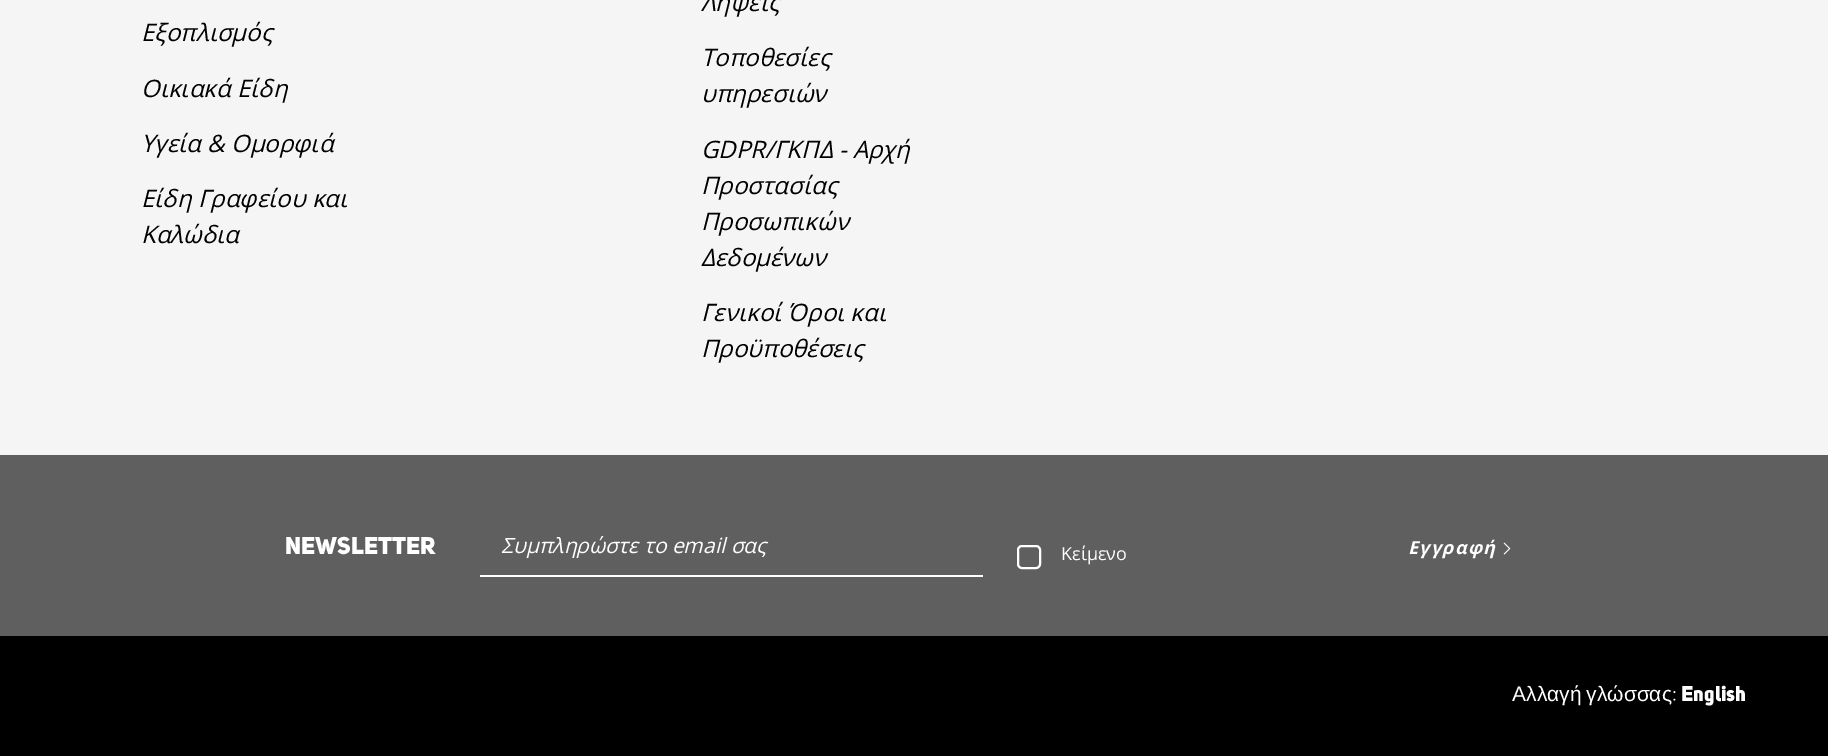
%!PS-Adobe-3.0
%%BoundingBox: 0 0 1828 756
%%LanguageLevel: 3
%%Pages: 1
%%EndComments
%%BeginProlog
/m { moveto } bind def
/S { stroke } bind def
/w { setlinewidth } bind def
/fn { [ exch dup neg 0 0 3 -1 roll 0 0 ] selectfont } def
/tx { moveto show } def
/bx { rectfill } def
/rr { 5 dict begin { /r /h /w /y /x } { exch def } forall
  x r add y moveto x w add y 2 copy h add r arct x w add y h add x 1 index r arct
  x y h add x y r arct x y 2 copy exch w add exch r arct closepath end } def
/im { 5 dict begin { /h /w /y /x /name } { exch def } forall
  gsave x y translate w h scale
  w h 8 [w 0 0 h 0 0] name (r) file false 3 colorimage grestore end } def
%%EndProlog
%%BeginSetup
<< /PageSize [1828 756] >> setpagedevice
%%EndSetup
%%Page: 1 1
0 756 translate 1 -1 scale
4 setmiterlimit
0.961 setgray
0 0 1828 756 bx
/OpenSans-Italic 24 fn
0 0 0.004 setrgbcolor
(Εξοπλισμός) 141 41 tx
(Οικιακά Είδη) 141 97 tx
(Υγεία & Ομορφιά) 141 152 tx
(Είδη Γραφείου και) 141 207 tx
(Καλώδια) 141 243 tx
(Λήψεις) 701 11 tx
(Τοποθεσίες) 701 66 tx
(υπηρεσιών) 701 102 tx
(GDPR/ΓΚΠΔ - Αρχή) 701 158 tx
(Προστασίας) 701 194 tx
(Προσωπικών) 701 230 tx
(Δεδομένων) 701 266 tx
(Γενικοί Όροι και) 701 321 tx
(Προϋποθέσεις) 701 357 tx
0.373 setgray
0 455 1828 181 bx
/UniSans-Black 24 fn
1 setgray
(NEWSLETTER) 285 554 tx
480 575 503 2 bx
/OpenSans-Italic 21 fn
(Συμπληρώστε το email σας) 501 553 tx
2 w
1018 546 22 22 4 rr S
/OpenSans-Regular 18 fn
(Κείμενο) 1061 560 tx
/OpenSans-BoldItalic 18 fn
1408 554 m 1.25 0 (Εγγραφή) ashow
(image0.raw) 1503 542 8 13 im
0 0 0.004 setrgbcolor
0 636 1828 120 bx
/LiberationSans-Regular 21 fn
1 setgray
1512 701 m -1 0 32 (Αλλαγή γλώσσας) widthshow
/UniSans-Regular 21 fn
(:) 1672 701 tx
/UniSans-Black 21 fn
(English) 1681 701 tx
showpage
%%EOF
